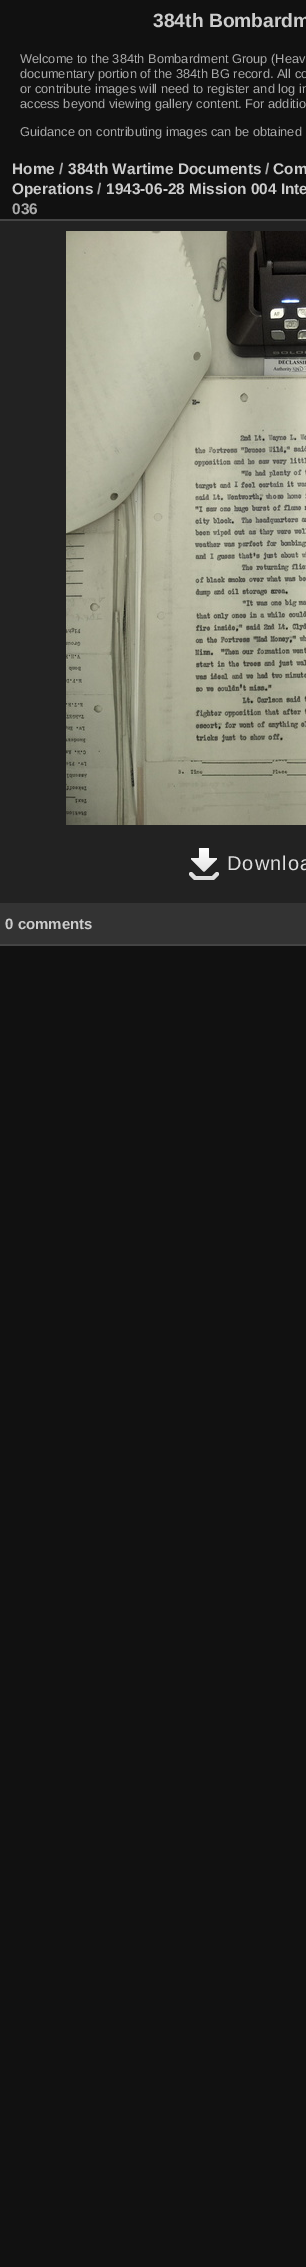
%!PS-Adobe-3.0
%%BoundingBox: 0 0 306 2267
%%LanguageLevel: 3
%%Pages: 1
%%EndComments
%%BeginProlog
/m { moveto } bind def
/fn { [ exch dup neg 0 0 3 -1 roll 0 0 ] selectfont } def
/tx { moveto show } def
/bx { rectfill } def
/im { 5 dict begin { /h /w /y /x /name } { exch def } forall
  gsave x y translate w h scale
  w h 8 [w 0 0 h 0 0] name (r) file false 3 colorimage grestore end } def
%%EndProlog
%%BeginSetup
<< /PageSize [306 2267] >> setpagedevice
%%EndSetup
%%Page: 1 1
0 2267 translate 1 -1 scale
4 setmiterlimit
0.067 setgray
0 0 306 2267 bx
/LiberationSans-Bold 19.25 fn
0.8 setgray
(384th Bombardm) 153 27 tx
/LiberationSans-Regular 12.8 fn
0.667 setgray
(Welcome to the 384th Bombardment Group \(Heav) 20 63 tx
(documentary portion of the 384th BG record. All co) 20 78 tx
(or contribute images will need to register and log in) 20 93 tx
(access beyond viewing gallery content. For additio) 20 108 tx
(Guidance on contributing images can be obtained) 20 136 tx
0.133 setgray
0 221 306 682 bx
0.267 setgray
0 944 306 2 bx
0 219 306 2 bx
/LiberationSans-Bold 15.4 fn
0.8 setgray
(Home) 12 174 tx
0.667 setgray
(/) 59 174 tx
0.8 setgray
(384th Wartime Documents) 68 174 tx
0.667 setgray
(/) 265 174 tx
0.8 setgray
(Com) 273 174 tx
(Operations) 12 194 tx
0.667 setgray
(/) 97 194 tx
0.8 setgray
(1943-06-28 Mission 004 Inte) 106 194 tx
0.667 setgray
(036) 12 214 tx
(image0.raw) 66 231 240 594 im
(image1.raw) 189 848 30 32 im
/LiberationSans-Regular 20 fn
0.867 setgray
227 870 m 1 0 (Downloa) ashow
0.2 setgray
0 903 306 41 bx
/LiberationSans-Bold 15 fn
0.8 setgray
(0 comments) 5 929 tx
showpage
%%EOF
